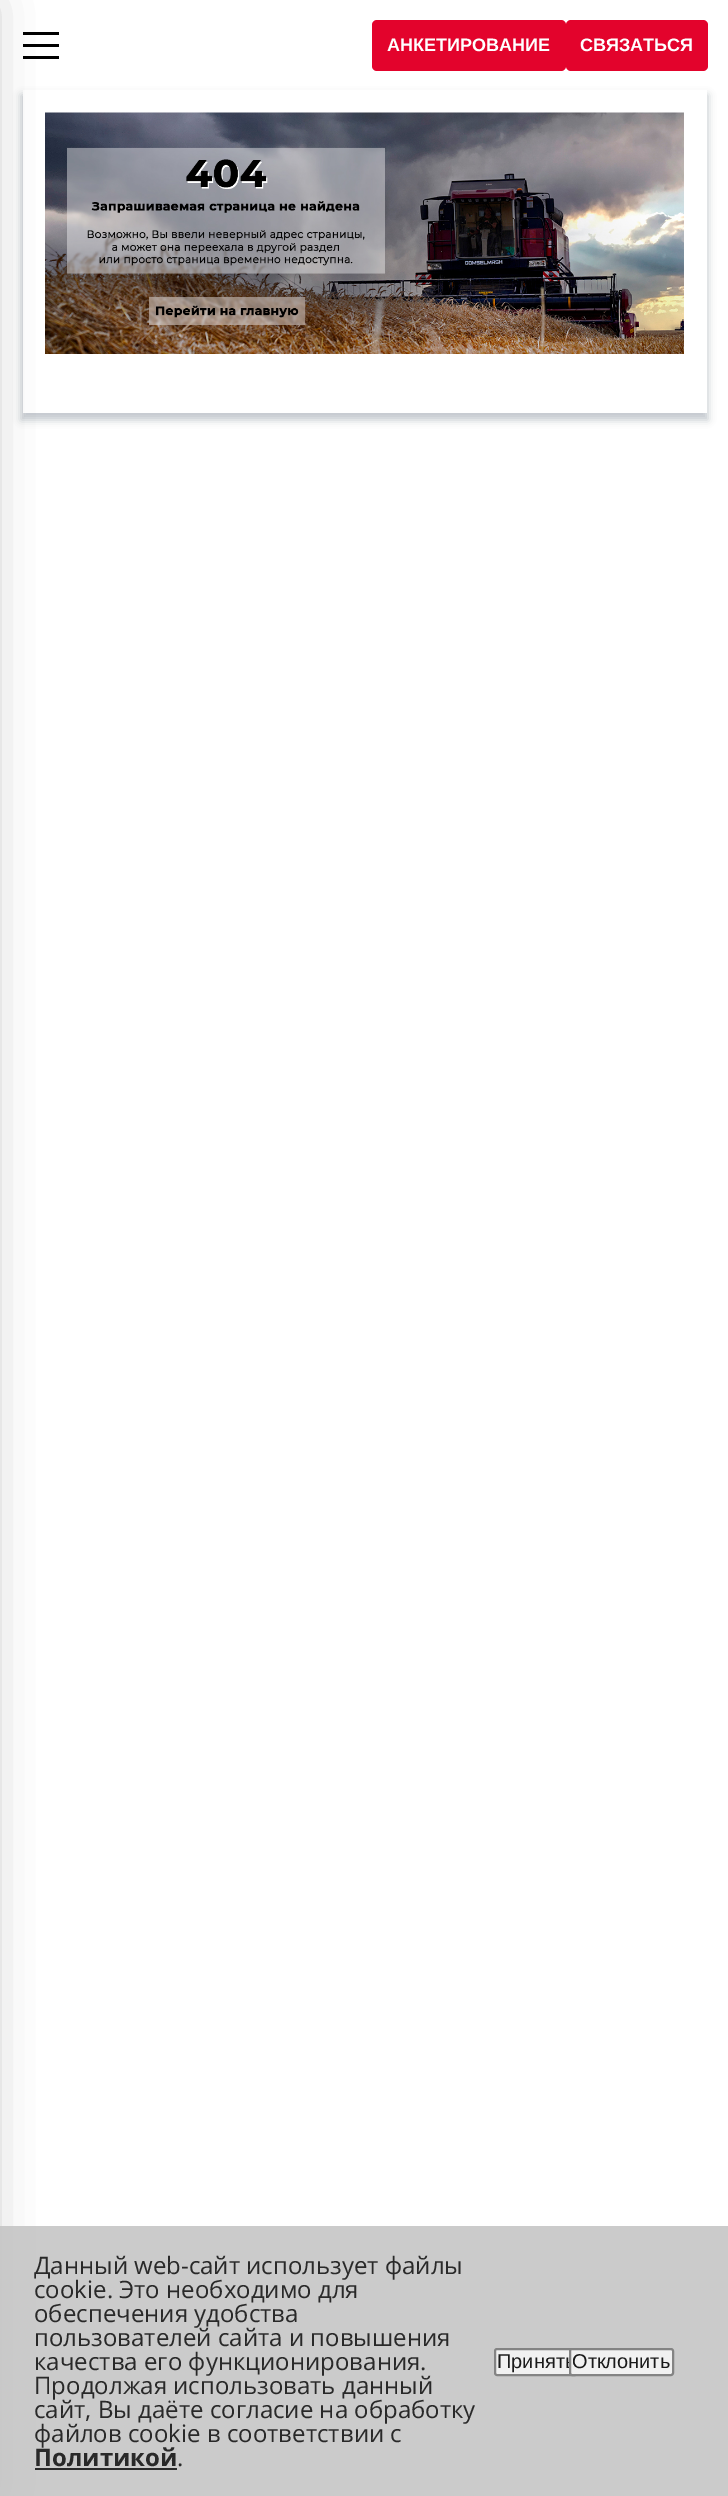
%!PS-Adobe-3.0
%%BoundingBox: 0 0 728 2496
%%LanguageLevel: 3
%%Pages: 1
%%EndComments
%%BeginProlog
/f { fill } bind def
/S { stroke } bind def
/q { gsave } bind def
/Q { grestore } bind def
/w { setlinewidth } bind def
/fn { [ exch dup neg 0 0 3 -1 roll 0 0 ] selectfont } def
/tx { moveto show } def
/bx { rectfill } def
/al { dup .setfillconstantalpha .setstrokeconstantalpha } def
/rr { 5 dict begin { /r /h /w /y /x } { exch def } forall
  x r add y moveto x w add y 2 copy h add r arct x w add y h add x 1 index r arct
  x y h add x y r arct x y 2 copy exch w add exch r arct closepath end } def
/sh { 12 dict begin { /a /b /q /h /w /y /x } { exch def } forall gsave /was 0 def
  9 -2 -9 { dup b mul 4 div /e exch def 1 sub .425 mul 2.718 exch exp 1 add a .99 .min exch div /now exch def
    1 1 now sub 1 was sub div sub al /was now def
    w h .min e 2 mul add 0 gt { x e sub y e sub w e 2 mul add h e 2 mul add
      q e add b .6 mul add w h .min 2 div e add .min 0 .max rr fill } if } for grestore end } def
/im { 5 dict begin { /h /w /y /x /name } { exch def } forall
  gsave x y translate w h scale
  w h 8 [w 0 0 h 0 0] name (r) file false 3 colorimage grestore end } def
%%EndProlog
%%BeginSetup
<< /PageSize [728 2496] /PageUsesTransparency true >> setpagedevice
%%EndSetup
%%Page: 1 1
0 .pushpdf14devicefilter
0 2496 translate 1 -1 scale
4 setmiterlimit
1 setgray
0 0 728 2496 bx
0 setgray
23 32 36 3 bx
23 44 36 3 bx
23 56 36 3 bx
0.765 0.78 0.808 setrgbcolor
21 95 687 325 0 4 1 sh
1 setgray
23 90 684 323 bx
(image0.raw) 45 112 639 242 im
0 setgray
-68 5 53 2487 0 22.5 0.32 sh
0.89 0.012 0.173 setrgbcolor
372 20 194 51 5 rr f
/LiberationSans-Bold 18 fn
1 setgray
(АНКЕТИРОВАНИЕ) 387 51 tx
0.89 0.012 0.173 setrgbcolor
566 20 142 51 5 rr f
1 setgray
(СВЯЗАТЬСЯ) 580 51 tx
0.9 al
0.773 setgray
0 2226 728 270 bx
/OpenSans-Regular 24 fn
1 al
0.161 setgray
(Данный web-сайт использует файлы) 34 2274 tx
(cookie. Это необходимо для) 34 2298 tx
(обеспечения удобства) 34 2322 tx
(пользователей сайта и повышения) 34 2346 tx
(качества его функционирования.) 34 2370 tx
(Продолжая использовать данный) 34 2394 tx
(сайт, Вы даёте согласие на обработку) 34 2418 tx
(файлов cookie в соответствии с) 34 2442 tx
/OpenSans-Bold 24 fn
(Политикой) 34 2466 tx
35 2468 142 2 bx
/OpenSans-Regular 24 fn
(.) 177 2466 tx
0.945 setgray
495 2349 82 26 2 rr q f Q
0.518 setgray
2 w
S
/LiberationSans-Regular 20 fn
0.102 setgray
(Принять) 497 2368 tx
0.945 setgray
570 2349 103 26 2 rr q f Q
0.518 setgray
S
0.102 setgray
(Отклонить) 572 2368 tx
.poppdf14devicefilter showpage
%%EOF
